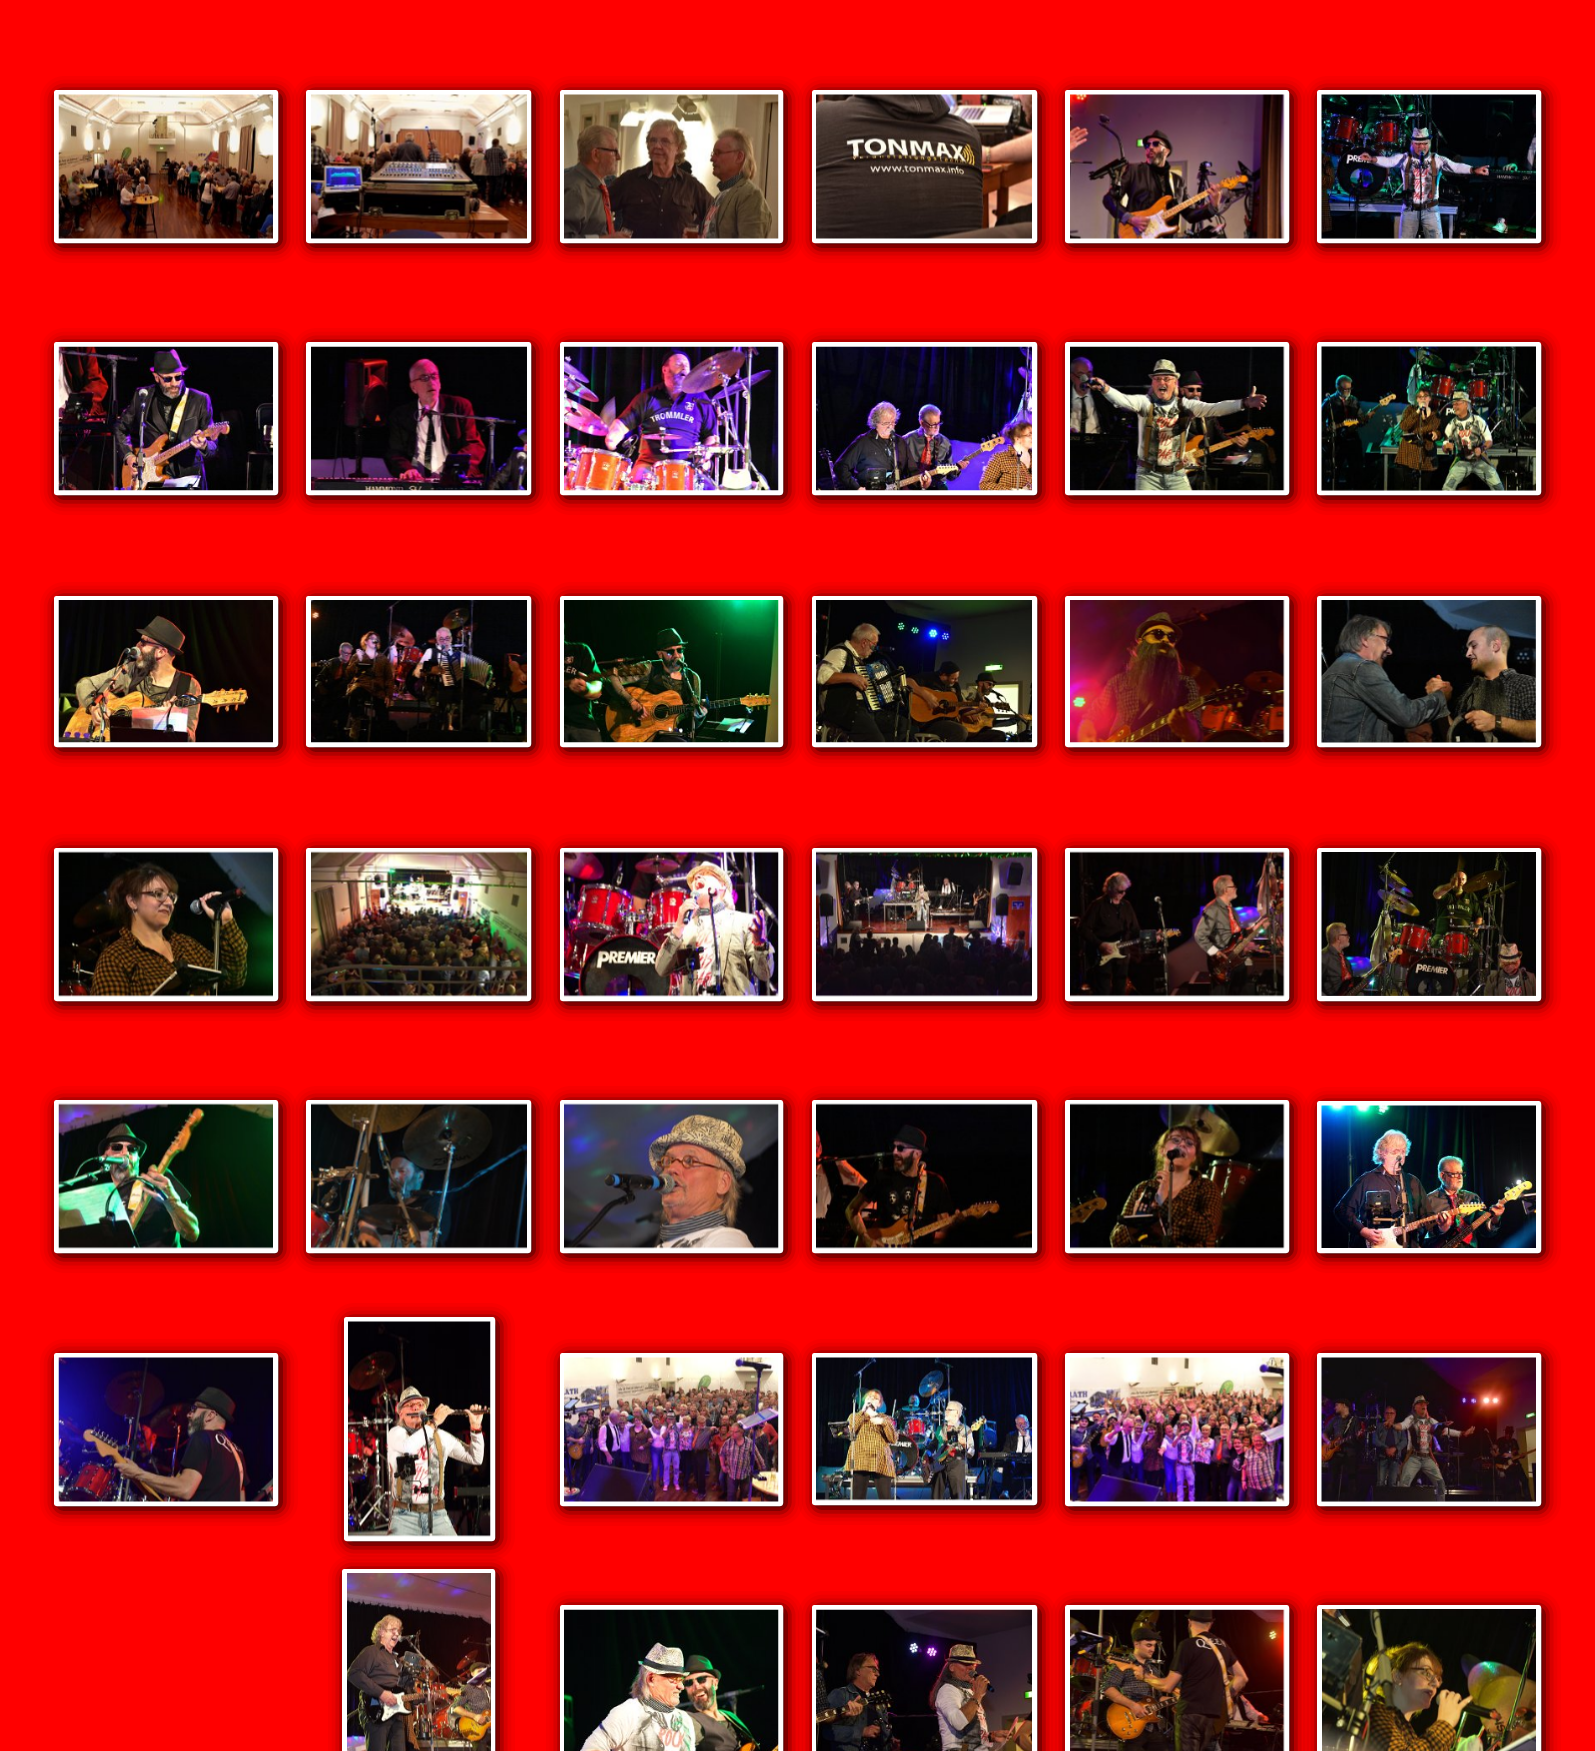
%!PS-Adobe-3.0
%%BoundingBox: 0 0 1595 1751
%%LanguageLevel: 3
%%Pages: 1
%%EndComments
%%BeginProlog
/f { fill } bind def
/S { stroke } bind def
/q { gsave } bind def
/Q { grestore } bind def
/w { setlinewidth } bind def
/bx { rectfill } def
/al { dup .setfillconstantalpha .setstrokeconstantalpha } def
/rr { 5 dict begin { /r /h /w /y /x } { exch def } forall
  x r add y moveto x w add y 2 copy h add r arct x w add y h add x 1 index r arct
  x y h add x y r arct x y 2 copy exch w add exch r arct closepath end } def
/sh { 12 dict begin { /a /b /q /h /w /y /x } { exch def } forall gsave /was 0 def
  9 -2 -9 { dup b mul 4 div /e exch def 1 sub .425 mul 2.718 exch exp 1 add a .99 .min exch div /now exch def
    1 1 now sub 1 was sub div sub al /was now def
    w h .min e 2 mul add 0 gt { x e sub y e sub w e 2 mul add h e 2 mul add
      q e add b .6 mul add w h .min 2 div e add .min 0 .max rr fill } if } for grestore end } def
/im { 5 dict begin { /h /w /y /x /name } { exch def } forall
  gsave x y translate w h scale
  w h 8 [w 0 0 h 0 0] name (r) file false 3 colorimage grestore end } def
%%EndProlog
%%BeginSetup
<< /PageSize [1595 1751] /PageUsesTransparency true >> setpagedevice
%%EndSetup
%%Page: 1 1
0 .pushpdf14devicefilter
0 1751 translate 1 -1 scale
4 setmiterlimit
1 0 0 setrgbcolor
0 0 1595 1751 bx
0 setgray
57 93 224 153 3 7.5 1 sh
1 setgray
5 w
56.5 92.5 219 148 0.5 rr S
(image0.raw) 58 94 215 145 im
0 setgray
309 93 225 153 3 7.5 1 sh
1 setgray
308.5 92.5 220 148 0.5 rr S
(image1.raw) 311 94 216 145 im
0 setgray
563 93 223 153 3 7.5 1 sh
1 setgray
562.5 92.5 218 148 0.5 rr S
(image2.raw) 564 94 215 145 im
0 setgray
815 93 225 153 3 7.5 1 sh
1 setgray
814.5 92.5 220 148 0.5 rr S
(image3.raw) 816 94 216 145 im
0 setgray
1068 93 224 153 3 7.5 1 sh
1 setgray
1067.5 92.5 219 148 0.5 rr q f Q
S
(image4.raw) 1070 94 215 145 im
0 setgray
1320 93 224 153 3 7.5 1 sh
1 setgray
1319.5 92.5 219 148 0.5 rr S
(image5.raw) 1321 94 215 145 im
0 setgray
57 345 224 153 3 7.5 1 sh
1 setgray
56.5 344.5 219 148 0.5 rr S
(image6.raw) 58 346 215 145 im
0 setgray
309 345 225 153 3 7.5 1 sh
1 setgray
308.5 344.5 220 148 0.5 rr S
(image7.raw) 311 346 216 145 im
0 setgray
563 345 223 153 3 7.5 1 sh
1 setgray
562.5 344.5 218 148 0.5 rr S
(image8.raw) 564 346 215 145 im
0 setgray
815 345 225 153 3 7.5 1 sh
1 setgray
814.5 344.5 220 148 0.5 rr S
(image9.raw) 816 346 216 145 im
0 setgray
1068 345 224 153 3 7.5 1 sh
1 setgray
1067.5 344.5 219 148 0.5 rr q f Q
S
(image10.raw) 1070 346 215 145 im
0 setgray
1320 345 224 153 3 7.5 1 sh
1 setgray
1319.5 344.5 219 148 0.5 rr S
(image11.raw) 1321 346 215 145 im
0 setgray
57 599 224 151 3 7.5 1 sh
1 setgray
56.5 598.5 219 146 0.5 rr S
(image12.raw) 58 600 215 143 im
0 setgray
309 599 225 151 3 7.5 1 sh
1 setgray
308.5 598.5 220 146 0.5 rr S
(image13.raw) 311 600 216 143 im
0 setgray
563 599 223 151 3 7.5 1 sh
1 setgray
562.5 598.5 218 146 0.5 rr S
(image14.raw) 564 600 215 143 im
0 setgray
815 599 225 151 3 7.5 1 sh
1 setgray
814.5 598.5 220 146 0.5 rr S
(image15.raw) 816 600 216 143 im
0 setgray
1068 599 224 151 3 7.5 1 sh
1 setgray
1067.5 598.5 219 146 0.5 rr q f Q
S
(image16.raw) 1070 600 215 143 im
0 setgray
1320 599 224 151 3 7.5 1 sh
1 setgray
1319.5 598.5 219 146 0.5 rr S
(image17.raw) 1321 600 215 143 im
0 setgray
57 851 224 153 3 7.5 1 sh
1 setgray
56.5 850.5 219 148 0.5 rr q f Q
S
(image18.raw) 58 851 215 146 im
0 setgray
309 851 225 153 3 7.5 1 sh
1 setgray
308.5 850.5 220 148 0.5 rr q f Q
S
(image19.raw) 311 851 216 146 im
0 setgray
563 851 223 153 3 7.5 1 sh
1 setgray
562.5 850.5 218 148 0.5 rr q f Q
S
(image20.raw) 564 851 215 146 im
0 setgray
815 851 225 153 3 7.5 1 sh
1 setgray
814.5 850.5 220 148 0.5 rr q f Q
S
(image21.raw) 816 851 216 146 im
0 setgray
1068 851 224 153 3 7.5 1 sh
1 setgray
1067.5 850.5 219 148 0.5 rr q f Q
S
(image22.raw) 1070 851 215 146 im
0 setgray
1320 851 224 153 3 7.5 1 sh
1 setgray
1319.5 850.5 219 148 0.5 rr S
(image23.raw) 1321 852 215 144 im
0 setgray
57 1103 224 153 3 7.5 1 sh
1 setgray
56.5 1102.5 219 148 0.5 rr q f Q
S
(image24.raw) 58 1103 215 146 im
0 setgray
309 1103 225 153 3 7.5 1 sh
1 setgray
308.5 1102.5 220 148 0.5 rr q f Q
S
(image25.raw) 311 1103 216 146 im
0 setgray
563 1103 223 153 3 7.5 1 sh
1 setgray
562.5 1102.5 218 148 0.5 rr q f Q
S
(image26.raw) 564 1103 215 146 im
0 setgray
815 1103 225 153 3 7.5 1 sh
1 setgray
814.5 1102.5 220 148 0.5 rr q f Q
S
(image27.raw) 816 1103 216 146 im
0 setgray
1068 1103 224 153 3 7.5 1 sh
1 setgray
1067.5 1102.5 219 148 0.5 rr q f Q
S
(image28.raw) 1070 1103 215 146 im
0 setgray
1320 1104 224 152 3 7.5 1 sh
1 setgray
1319.5 1103.5 219 147 0.5 rr S
(image29.raw) 1321 1105 215 143 im
0 setgray
57 1356 224 153 3 7.5 1 sh
1 setgray
56.5 1355.5 219 148 0.5 rr S
(image30.raw) 58 1357 215 145 im
0 setgray
347 1320 151 224 3 7.5 1 sh
1 setgray
346.5 1319.5 146 219 0.5 rr q f Q
S
(image31.raw) 348 1321 143 216 im
0 setgray
563 1356 223 153 3 7.5 1 sh
1 setgray
562.5 1355.5 218 148 0.5 rr S
(image32.raw) 564 1357 215 145 im
0 setgray
815 1356 225 152 3 7.5 1 sh
1 setgray
814.5 1355.5 220 147 0.5 rr q f Q
S
(image33.raw) 816 1357 216 144 im
0 setgray
1068 1356 224 153 3 7.5 1 sh
1 setgray
1067.5 1355.5 219 148 0.5 rr q f Q
S
(image34.raw) 1070 1357 215 145 im
0 setgray
1320 1356 224 153 3 7.5 1 sh
1 setgray
1319.5 1355.5 219 148 0.5 rr S
(image35.raw) 1321 1357 215 145 im
0 setgray
345 1572 153 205 3 7.5 1 sh
1 setgray
344.5 1571.5 148 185 0.5 rr S
(image36.raw) 347 1573 144 178 im
0 setgray
563 1608 223 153 3 7.5 1 sh
1 setgray
562.5 1607.5 218 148 0.5 rr S
(image37.raw) 564 1609 215 142 im
0 setgray
815 1608 225 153 3 7.5 1 sh
1 setgray
814.5 1607.5 220 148 0.5 rr S
(image38.raw) 816 1609 216 142 im
0 setgray
1068 1608 224 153 3 7.5 1 sh
1 setgray
1067.5 1607.5 219 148 0.5 rr q f Q
S
(image39.raw) 1070 1609 215 142 im
0 setgray
1320 1608 224 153 3 7.5 1 sh
1 setgray
1319.5 1607.5 219 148 0.5 rr S
(image40.raw) 1322 1609 214 142 im
.poppdf14devicefilter showpage
%%EOF
